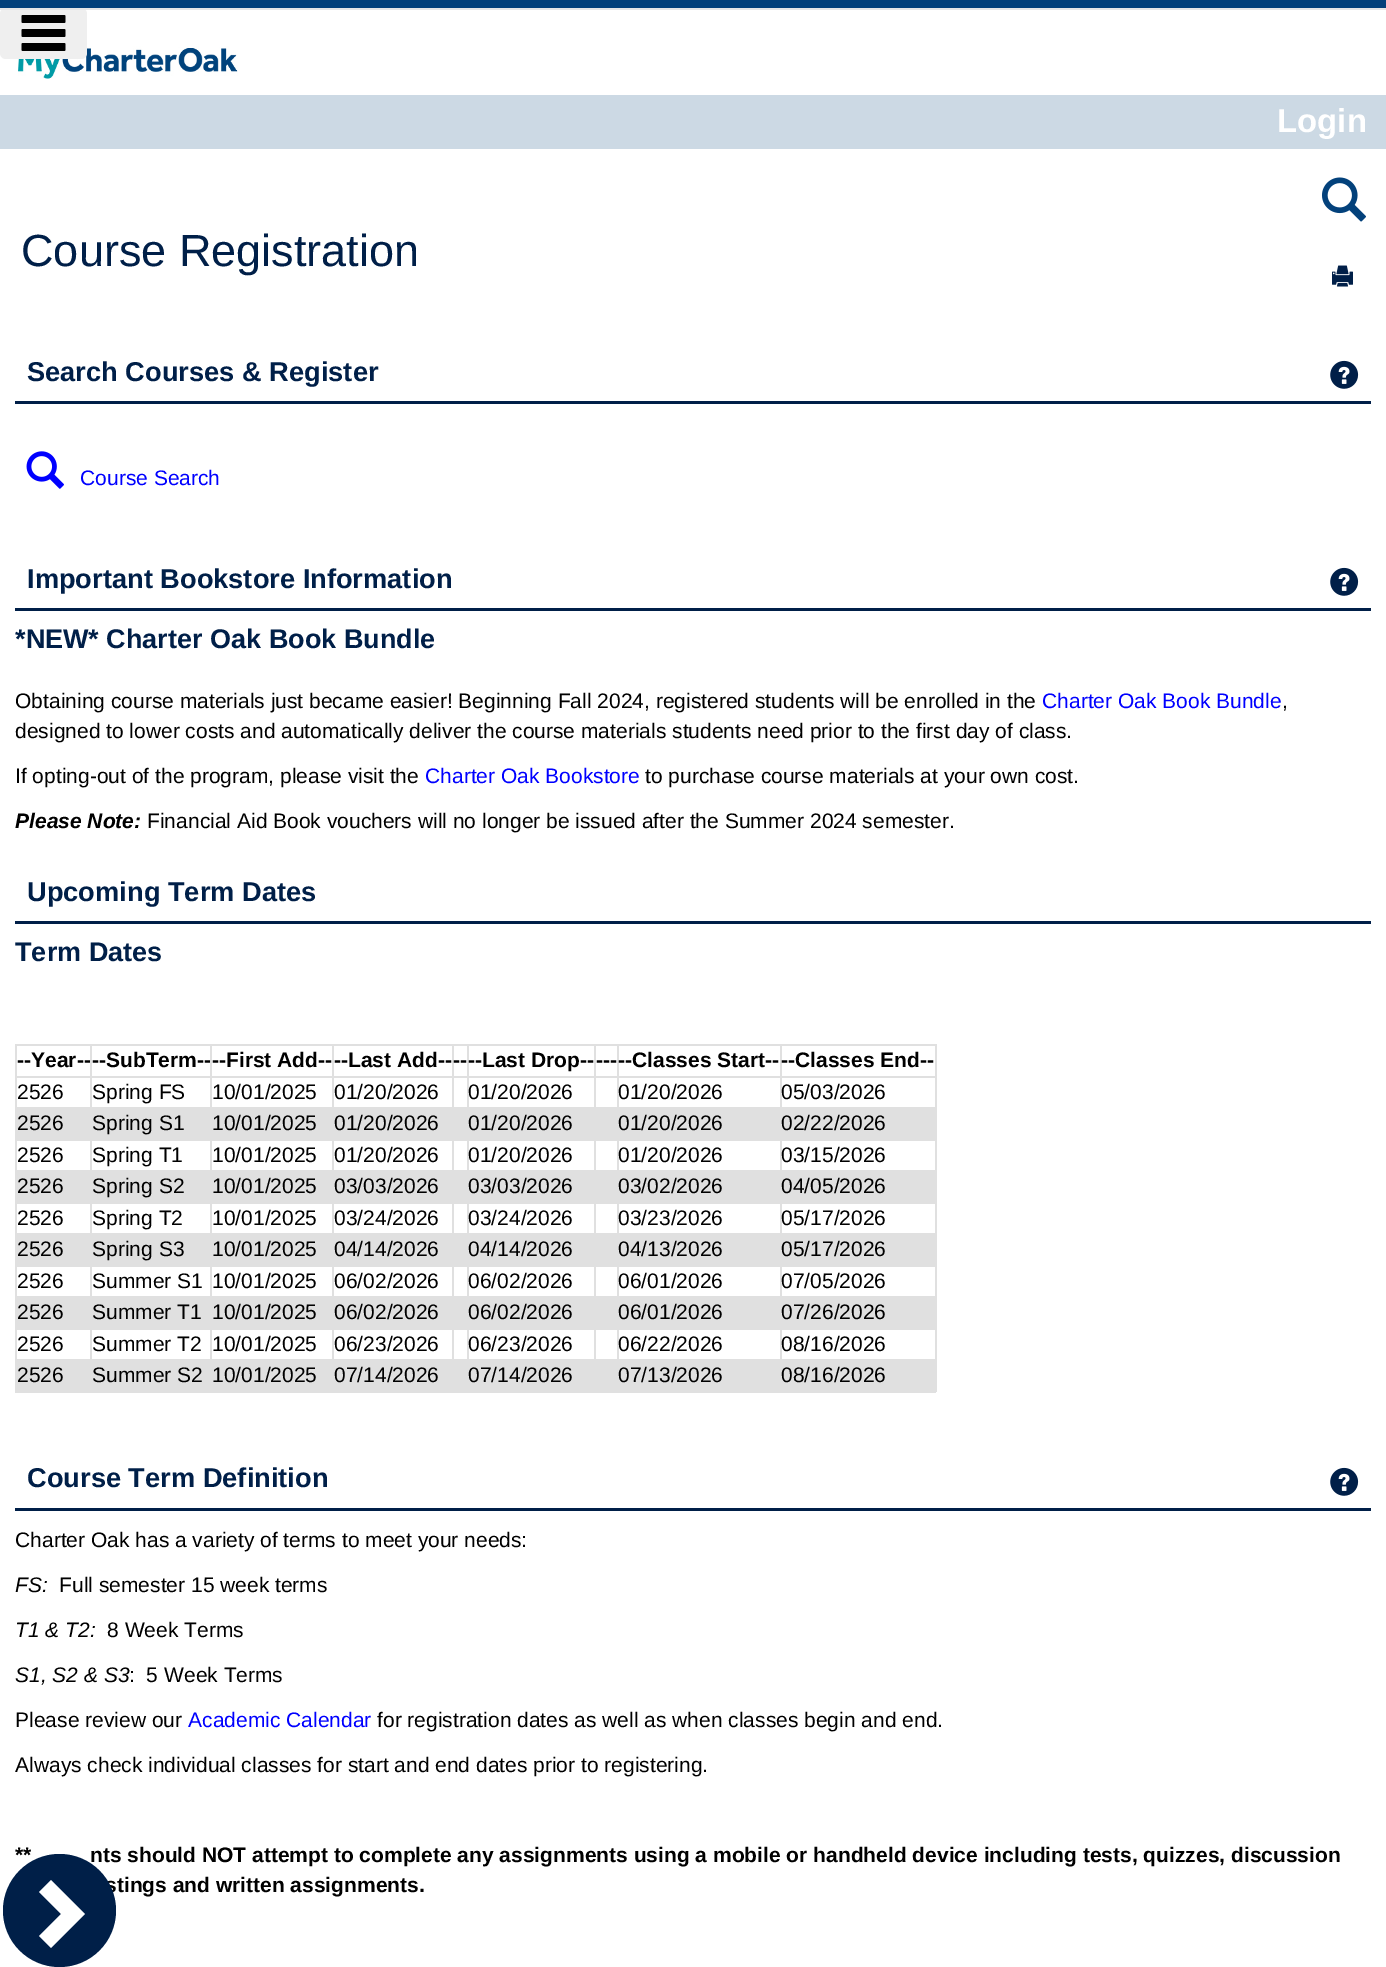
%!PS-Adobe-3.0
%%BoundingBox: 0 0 1386 1967
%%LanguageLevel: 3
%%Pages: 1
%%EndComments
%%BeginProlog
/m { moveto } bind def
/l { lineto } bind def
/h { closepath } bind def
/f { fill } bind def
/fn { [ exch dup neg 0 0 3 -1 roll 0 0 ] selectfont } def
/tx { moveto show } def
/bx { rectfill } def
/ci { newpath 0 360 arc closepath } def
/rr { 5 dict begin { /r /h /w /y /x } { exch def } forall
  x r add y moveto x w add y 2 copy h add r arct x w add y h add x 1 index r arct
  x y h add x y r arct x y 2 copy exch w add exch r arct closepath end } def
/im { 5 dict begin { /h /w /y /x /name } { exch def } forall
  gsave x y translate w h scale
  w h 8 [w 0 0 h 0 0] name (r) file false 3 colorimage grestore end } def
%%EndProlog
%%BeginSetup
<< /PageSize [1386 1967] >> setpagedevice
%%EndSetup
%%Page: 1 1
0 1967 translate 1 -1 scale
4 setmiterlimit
1 setgray
0 0 1386 1967 bx
0.012 0.255 0.482 setrgbcolor
0 0 1386 8 bx
(image1.raw) 18 46 220 33 im
0.937 setgray
0 8 87 51 6 rr f
0.906 setgray
0 8 1386 2 bx
(image0.raw) 21 15 45 36 im
0.8 0.851 0.894 setrgbcolor
0 95 1386 54 bx
/LiberationSans-Bold 33 fn
1 setgray
(Login) 1277 132 tx
(image2.raw) 1322 177 44 45 im
/LiberationSans-Regular 45 fn
0 0.122 0.282 setrgbcolor
(Course Registration) 21 266 tx
(image3.raw) 1332 265 21 22 im
15 401 1356 3 bx
/LiberationSans-Bold 27.25 fn
(Search Courses & Register) 27 381 tx
(image4.raw) 1330 360 29 29 im
(image5.raw) 26 451 38 38 im
/LiberationSans-Regular 21 fn
0 0 1 setrgbcolor
(Course Search) 80 485 tx
0 0.122 0.282 setrgbcolor
15 608 1356 3 bx
/LiberationSans-Bold 27.25 fn
(Important Bookstore Information) 27 588 tx
(image4.raw) 1330 567 29 29 im
/LiberationSans-Bold 27 fn
(*NEW* Charter Oak Book Bundle) 15 648 tx
/LiberationSans-Regular 21 fn
0 setgray
(Obtaining course materials just became easier! Beginning Fall 2024, registered students will be enrolled in the) 15 708 tx
0 0 1 setrgbcolor
(Charter Oak Book Bundle) 1042 708 tx
0 setgray
(,) 1282 708 tx
(designed to lower costs and automatically deliver the course materials students need prior to the first day of class.) 15 738 tx
(If opting-out of the program, please visit the) 15 783 tx
0 0 1 setrgbcolor
(Charter Oak Bookstore) 425 783 tx
0 setgray
(to purchase course materials at your own cost.) 645 783 tx
/LiberationSans-BoldItalic 21 fn
(Please Note:) 15 828 tx
/LiberationSans-Regular 21 fn
(Financial Aid Book vouchers will no longer be issued after the Summer 2024 semester.) 147 828 tx
0 0.122 0.282 setrgbcolor
15 921 1356 3 bx
/LiberationSans-Bold 27.25 fn
(Upcoming Term Dates) 27 901 tx
/LiberationSans-Bold 27 fn
(Term Dates) 15 961 tx
0.878 setgray
15 1044 921 2 bx
935 1044 2 348 bx
15 1391 921 2 bx
15 1044 2 348 bx
/LiberationSans-Bold 21 fn
0 setgray
(--Year--) 17 1067 tx
0.878 setgray
780 1076 156 2 bx
17 1107 918 32 bx
780 1076 2 33 bx
617 1076 165 2 bx
617 1076 2 33 bx
594 1076 24 2 bx
594 1076 2 33 bx
467 1076 129 2 bx
467 1076 2 33 bx
452 1076 16 2 bx
452 1076 2 33 bx
332 1076 121 2 bx
332 1076 2 33 bx
210 1076 123 2 bx
210 1076 2 33 bx
90 1076 122 2 bx
90 1076 2 33 bx
15 1076 77 2 bx
90 1044 2 33 bx
0 setgray
(--SubTerm--) 92 1067 tx
0.878 setgray
210 1044 2 33 bx
0 setgray
(--First Add--) 212 1067 tx
0.878 setgray
332 1044 2 33 bx
0 setgray
(--Last Add--) 334 1067 tx
0.878 setgray
452 1044 2 33 bx
0 setgray
(--) 453 1067 tx
0.878 setgray
467 1044 2 33 bx
0 setgray
(--Last Drop--) 468 1067 tx
0.878 setgray
594 1044 2 33 bx
0 setgray
(---) 596 1067 tx
0.878 setgray
617 1044 2 33 bx
0 setgray
(--Classes Start--) 618 1067 tx
0.878 setgray
780 1044 2 33 bx
0 setgray
(--Classes End--) 781 1067 tx
/LiberationSans-Regular 21 fn
(2526) 17 1099 tx
(Spring FS) 92 1099 tx
(10/01/2025) 212 1099 tx
(01/20/2026) 334 1099 tx
(01/20/2026) 468 1099 tx
(01/20/2026) 618 1099 tx
(05/03/2026) 781 1099 tx
(2526) 17 1130 tx
(Spring S1) 92 1130 tx
(10/01/2025) 212 1130 tx
(01/20/2026) 334 1130 tx
(01/20/2026) 468 1130 tx
(01/20/2026) 618 1130 tx
(02/22/2026) 781 1130 tx
0.878 setgray
780 1139 156 2 bx
17 1170 918 32 bx
780 1139 2 33 bx
617 1139 165 2 bx
617 1139 2 33 bx
594 1139 24 2 bx
594 1139 2 33 bx
467 1139 129 2 bx
467 1139 2 33 bx
452 1139 16 2 bx
452 1139 2 33 bx
332 1139 121 2 bx
332 1139 2 33 bx
210 1139 123 2 bx
210 1139 2 33 bx
90 1139 122 2 bx
90 1139 2 33 bx
15 1139 77 2 bx
0 setgray
(2526) 17 1162 tx
(Spring T1) 92 1162 tx
(10/01/2025) 212 1162 tx
(01/20/2026) 334 1162 tx
(01/20/2026) 468 1162 tx
(01/20/2026) 618 1162 tx
(03/15/2026) 781 1162 tx
(2526) 17 1193 tx
(Spring S2) 92 1193 tx
(10/01/2025) 212 1193 tx
(03/03/2026) 334 1193 tx
(03/03/2026) 468 1193 tx
(03/02/2026) 618 1193 tx
(04/05/2026) 781 1193 tx
0.878 setgray
780 1202 156 2 bx
17 1233 918 32 bx
780 1202 2 33 bx
617 1202 165 2 bx
617 1202 2 33 bx
594 1202 24 2 bx
594 1202 2 33 bx
467 1202 129 2 bx
467 1202 2 33 bx
452 1202 16 2 bx
452 1202 2 33 bx
332 1202 121 2 bx
332 1202 2 33 bx
210 1202 123 2 bx
210 1202 2 33 bx
90 1202 122 2 bx
90 1202 2 33 bx
15 1202 77 2 bx
0 setgray
(2526) 17 1225 tx
(Spring T2) 92 1225 tx
(10/01/2025) 212 1225 tx
(03/24/2026) 334 1225 tx
(03/24/2026) 468 1225 tx
(03/23/2026) 618 1225 tx
(05/17/2026) 781 1225 tx
(2526) 17 1256 tx
(Spring S3) 92 1256 tx
(10/01/2025) 212 1256 tx
(04/14/2026) 334 1256 tx
(04/14/2026) 468 1256 tx
(04/13/2026) 618 1256 tx
(05/17/2026) 781 1256 tx
0.878 setgray
780 1265 156 2 bx
17 1296 918 32 bx
780 1265 2 33 bx
617 1265 165 2 bx
617 1265 2 33 bx
594 1265 24 2 bx
594 1265 2 33 bx
467 1265 129 2 bx
467 1265 2 33 bx
452 1265 16 2 bx
452 1265 2 33 bx
332 1265 121 2 bx
332 1265 2 33 bx
210 1265 123 2 bx
210 1265 2 33 bx
90 1265 122 2 bx
90 1265 2 33 bx
15 1265 77 2 bx
0 setgray
(2526) 17 1288 tx
(Summer S1) 92 1288 tx
(10/01/2025) 212 1288 tx
(06/02/2026) 334 1288 tx
(06/02/2026) 468 1288 tx
(06/01/2026) 618 1288 tx
(07/05/2026) 781 1288 tx
(2526) 17 1319 tx
(Summer T1) 92 1319 tx
(10/01/2025) 212 1319 tx
(06/02/2026) 334 1319 tx
(06/02/2026) 468 1319 tx
(06/01/2026) 618 1319 tx
(07/26/2026) 781 1319 tx
0.878 setgray
780 1328 156 2 bx
17 1359 918 32 bx
780 1328 2 33 bx
617 1328 165 2 bx
617 1328 2 33 bx
594 1328 24 2 bx
594 1328 2 33 bx
467 1328 129 2 bx
467 1328 2 33 bx
452 1328 16 2 bx
452 1328 2 33 bx
332 1328 121 2 bx
332 1328 2 33 bx
210 1328 123 2 bx
210 1328 2 33 bx
90 1328 122 2 bx
90 1328 2 33 bx
15 1328 77 2 bx
0 setgray
(2526) 17 1351 tx
(Summer T2) 92 1351 tx
(10/01/2025) 212 1351 tx
(06/23/2026) 334 1351 tx
(06/23/2026) 468 1351 tx
(06/22/2026) 618 1351 tx
(08/16/2026) 781 1351 tx
(2526) 17 1382 tx
(Summer S2) 92 1382 tx
(10/01/2025) 212 1382 tx
(07/14/2026) 334 1382 tx
(07/14/2026) 468 1382 tx
(07/13/2026) 618 1382 tx
(08/16/2026) 781 1382 tx
0 0.122 0.282 setrgbcolor
15 1508 1356 3 bx
/LiberationSans-Bold 27.25 fn
(Course Term Definition) 27 1487 tx
(image4.raw) 1330 1467 29 29 im
/LiberationSans-Regular 21 fn
0 setgray
(Charter Oak has a variety of terms to meet your needs:) 15 1547 tx
/LiberationSans-Italic 21 fn
(FS:) 15 1592 tx
/LiberationSans-Regular 21 fn
(Full semester 15 week terms) 59 1592 tx
/LiberationSans-Italic 21 fn
(T1 & T2:) 15 1637 tx
/LiberationSans-Regular 21 fn
(8 Week Terms) 107 1637 tx
/LiberationSans-Italic 21 fn
(S1, S2 & S3) 15 1682 tx
/LiberationSans-Regular 21 fn
(:  5 Week Terms) 129 1682 tx
(Please review our) 15 1727 tx
0 0 1 setrgbcolor
(Academic Calendar) 188 1727 tx
0 setgray
(for registration dates as well as when classes begin and end.) 377 1727 tx
(Always check individual classes for start and end dates prior to registering.) 15 1772 tx
/LiberationSans-Bold 21 fn
(**) 15 1862 tx
(nts should NOT attempt to complete any assignments using a mobile or handheld device including tests, quizzes, discussion) 90 1862 tx
(stings and written assignments.) 105 1892 tx
0 0.122 0.282 setrgbcolor
59.5 1910.5 56.5 ci f
1 setgray
51 1948 m 39 1936 l 61 1914 l 39 1892 l 51 1880 l 85 1914 l h f
showpage
%%EOF
